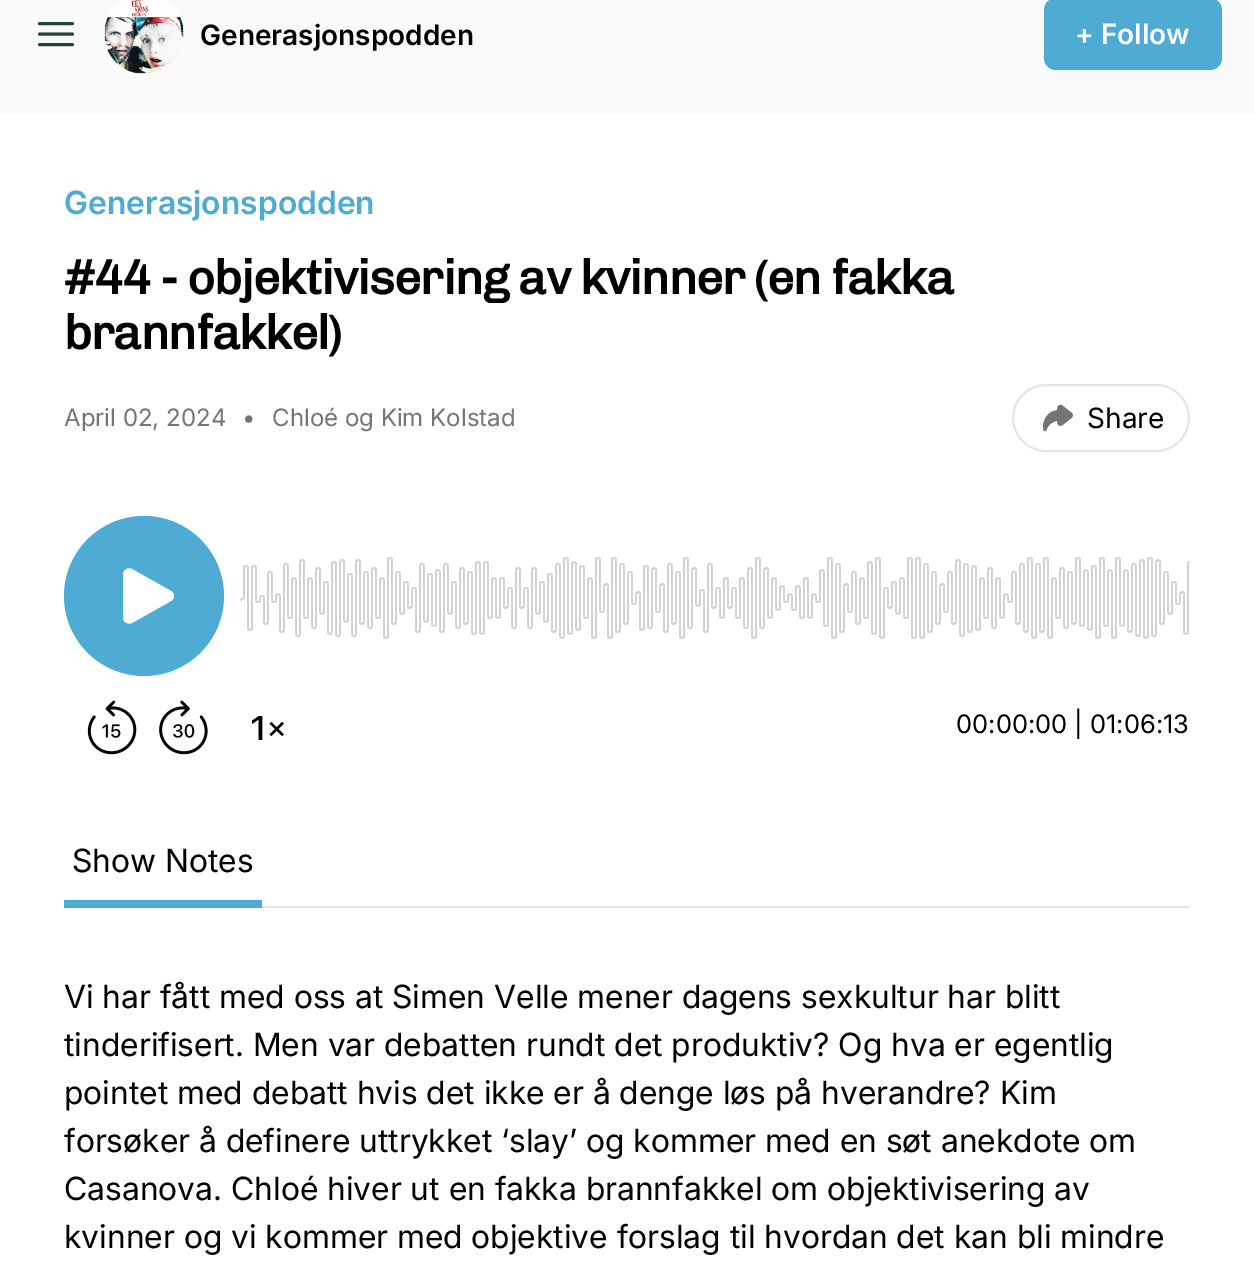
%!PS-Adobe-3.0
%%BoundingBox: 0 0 1254 1261
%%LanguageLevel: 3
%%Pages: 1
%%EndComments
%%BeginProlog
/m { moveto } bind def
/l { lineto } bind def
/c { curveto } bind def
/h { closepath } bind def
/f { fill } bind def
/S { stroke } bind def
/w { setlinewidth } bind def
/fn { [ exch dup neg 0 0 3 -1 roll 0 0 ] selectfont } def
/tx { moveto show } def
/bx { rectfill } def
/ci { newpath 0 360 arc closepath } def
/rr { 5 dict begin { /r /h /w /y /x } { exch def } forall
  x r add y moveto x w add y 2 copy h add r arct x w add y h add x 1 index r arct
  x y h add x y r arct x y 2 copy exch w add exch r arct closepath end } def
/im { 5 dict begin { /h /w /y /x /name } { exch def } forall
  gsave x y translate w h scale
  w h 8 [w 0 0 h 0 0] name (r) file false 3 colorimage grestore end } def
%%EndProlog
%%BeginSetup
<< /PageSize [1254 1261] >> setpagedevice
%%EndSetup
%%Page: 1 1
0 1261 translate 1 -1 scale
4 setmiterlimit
1 setgray
0 0 1254 1261 bx
0.98 setgray
0 0 1254 114 bx
0.129 0.271 0.22 setrgbcolor
3 w
1 setlinecap
1 setlinejoin
39.5 23.5 m 72.5 23.5 l 39.5 34 m 72.5 34 l 39.5 44.5 m 72.5 44.5 l S
(image0.raw) 104 0 80 74 im
/Inter-SemiBold 28 fn
0 setgray
(Generasjonspodden) 200 45 tx
0.306 0.675 0.831 setrgbcolor
1044 -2 178 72 12 rr f
1 setgray
(+ Follow) 1075 44 tx
/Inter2-SemiBold 32 fn
0.306 0.675 0.831 setrgbcolor
(Generasjonspodden) 64 214 tx
/Chivo-Bold 48 fn
0 setgray
64 294 m -1.2 0 (#44 - objektivisering av kvinner \(en fakka) ashow
64 349 m -1.2 0 (brannfakkel\)) ashow
/Inter-Regular 24 fn
0.455 0.459 0.463 setrgbcolor
(April 02, 2024) 64 426 tx
(•) 242 426 tx
(Chloé og Kim Kolstad) 272 426 tx
0.894 0.898 0.902 setrgbcolor
2 w
0 setlinecap
0 setlinejoin
1013 385 176 66 33 rr S
(image1.raw) 1043 404 30 28 im
/Inter-Regular 28 fn
0 setgray
(Share) 1087 428 tx
(image2.raw) 87 700 50 55 im
(image3.raw) 159 700 49 55 im
(image4.raw) 252 716 32 24 im
0.306 0.675 0.831 setrgbcolor
144 596 80 ci f
1 setgray
123 575 m 123 570 128 567 132 569 c 171 591 l 175 593 175 599 171 601 c 132 623 l 128 625 123 622 123 617 c h eofill
(image5.raw) 240 557 950 82 im
/Inter-Regular 25.5 fn
0 setgray
(00:00:00 | 01:06:13) 956 733 tx
0.894 0.898 0.902 setrgbcolor
262 906 928 2 bx
0.306 0.675 0.831 setrgbcolor
64 900 198 8 bx
/Inter2-Regular 32 fn
0 setgray
(Show Notes) 72 872 tx
(Vi har fått med oss at Simen Velle mener dagens sexkultur har blitt) 64 1008 tx
(tinderifisert. Men var debatten rundt det produktiv? Og hva er egentlig) 64 1056 tx
(pointet med debatt hvis det ikke er å denge løs på hverandre? Kim) 64 1104 tx
(forsøker å definere uttrykket ‘slay’ og kommer med en søt anekdote om) 64 1152 tx
(Casanova. Chloé hiver ut en fakka brannfakkel om objektivisering av) 64 1200 tx
(kvinner og vi kommer med objektive forslag til hvordan det kan bli mindre) 64 1248 tx
showpage
%%EOF
